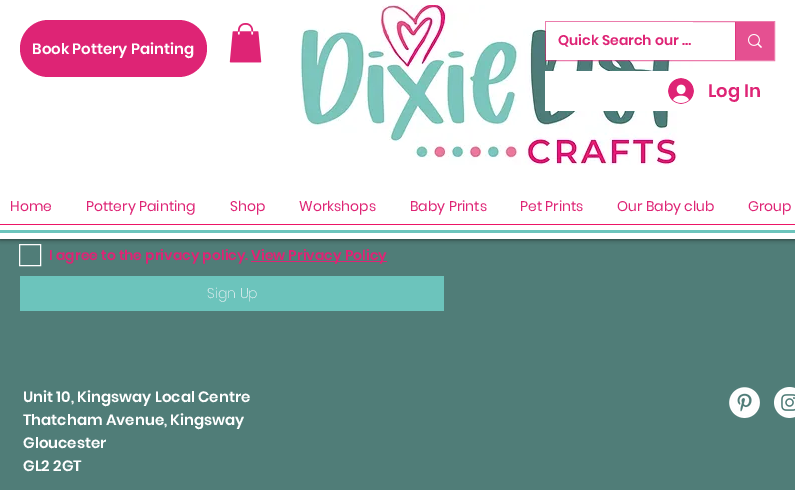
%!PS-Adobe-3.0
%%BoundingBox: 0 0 795 490
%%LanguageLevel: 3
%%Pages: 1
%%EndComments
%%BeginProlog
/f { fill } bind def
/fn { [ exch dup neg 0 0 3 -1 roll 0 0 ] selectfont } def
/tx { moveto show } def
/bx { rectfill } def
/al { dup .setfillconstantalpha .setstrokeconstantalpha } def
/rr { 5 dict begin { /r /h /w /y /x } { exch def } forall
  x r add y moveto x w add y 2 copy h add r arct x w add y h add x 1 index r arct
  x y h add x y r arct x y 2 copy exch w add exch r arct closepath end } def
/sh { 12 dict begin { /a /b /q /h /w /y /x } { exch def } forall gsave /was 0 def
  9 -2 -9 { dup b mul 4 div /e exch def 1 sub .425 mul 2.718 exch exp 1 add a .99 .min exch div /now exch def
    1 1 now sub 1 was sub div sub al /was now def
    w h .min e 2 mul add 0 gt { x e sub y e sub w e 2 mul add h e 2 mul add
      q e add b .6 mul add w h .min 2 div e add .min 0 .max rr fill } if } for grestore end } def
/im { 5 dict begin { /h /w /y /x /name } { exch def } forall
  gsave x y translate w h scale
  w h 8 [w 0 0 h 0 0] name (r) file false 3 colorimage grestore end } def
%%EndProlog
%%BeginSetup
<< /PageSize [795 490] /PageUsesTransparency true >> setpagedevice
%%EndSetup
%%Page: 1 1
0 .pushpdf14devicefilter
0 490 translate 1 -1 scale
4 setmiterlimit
0.314 0.49 0.471 setrgbcolor
0 0 795 490 bx
1 setgray
19.5 244.5 21 21 rectstroke
0 setgray
0 0 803 239 0 2.5 0.7 sh
1 setgray
0 0 795 239 bx
0.871 0.141 0.459 setrgbcolor
20 20 187 57 28.5 rr f
/Poppins-SemiBold 15 fn
1 setgray
(Book Pottery Painting) 32 54 tx
(image3.raw) 300 5 393 160 im
0.6 al
0.871 0.141 0.459 setrgbcolor
545.5 21.5 229 39 rectstroke
1 al
1 setgray
546 22 147 38 bx
/Poppins-SemiBold 14 fn
0.871 0.141 0.459 setrgbcolor
(Quick Search our …) 558 45 tx
0.898 0.314 0.569 setrgbcolor
736 22 38 38 bx
0.882 0.212 0.502 setrgbcolor
735 22 1 38 bx
(image0.raw) 748 34 14 14 im
1 setgray
545 71 132 40 bx
(image1.raw) 668 78 26 26 im
/Poppins-SemiBold 18 fn
0.871 0.141 0.459 setrgbcolor
(Log In) 708 97 tx
0.424 0.769 0.737 setrgbcolor
0 230 795 3 bx
0.929 0.082 0.4 setrgbcolor
0 224 795 1 bx
(image2.raw) 229 23 33 40 im
/Poppins-Regular 14 fn
0.871 0.141 0.459 setrgbcolor
(Home) 10 211 tx
(Pottery Painting) 86 211 tx
(Shop) 230 211 tx
(Workshops) 299 211 tx
(Baby Prints) 410 211 tx
(Pet Prints) 520 211 tx
(Our Baby club) 617 211 tx
(Group) 748 211 tx
/Poppins-SemiBold 14 fn
(I agree to the privacy policy.) 49 260 tx
251 261 136 1 bx
(View Privacy Policy) 251 260 tx
0.424 0.769 0.737 setrgbcolor
20 276 424 35 bx
/Poppins-ExtraLight 14 fn
0.961 0.961 0.976 setrgbcolor
(Sign Up) 207 298 tx
/Poppins-SemiBold 15 fn
1 setgray
(Unit 10, Kingsway Local Centre) 23 402 tx
(Thatcham Avenue, Kingsway) 23 425 tx
(Gloucester) 23 448 tx
(GL2 2GT) 23 471 tx
(image4.raw) 729 387 31 31 im
(image5.raw) 774 387 21 31 im
.poppdf14devicefilter showpage
%%EOF
